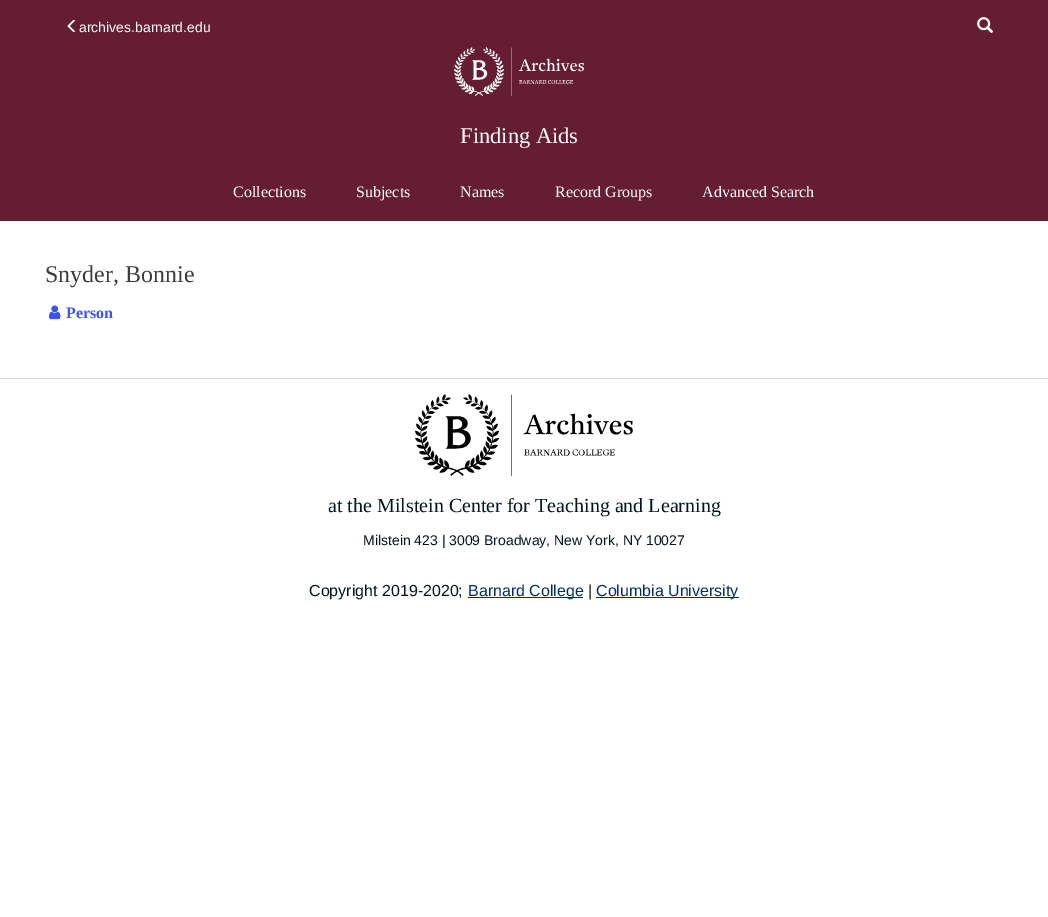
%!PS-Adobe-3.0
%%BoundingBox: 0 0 1048 917
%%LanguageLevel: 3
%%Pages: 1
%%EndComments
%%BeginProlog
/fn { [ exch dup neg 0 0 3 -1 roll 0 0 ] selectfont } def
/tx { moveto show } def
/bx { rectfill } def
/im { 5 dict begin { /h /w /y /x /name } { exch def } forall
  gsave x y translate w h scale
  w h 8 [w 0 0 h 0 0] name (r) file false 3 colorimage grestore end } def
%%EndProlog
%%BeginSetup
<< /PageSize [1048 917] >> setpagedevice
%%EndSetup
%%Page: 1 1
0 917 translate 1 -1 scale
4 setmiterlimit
1 setgray
0 0 1048 917 bx
0.396 0.114 0.196 setrgbcolor
0 0 1048 221 bx
(image0.raw) 67 20 9 12 im
/LiberationSans-Regular 14 fn
1 setgray
(archives.barnard.edu) 79 32 tx
(image1.raw) 977 17 17 17 im
(image2.raw) 454 47 130 49 im
/LiberationSerif-Regular 22.5 fn
(Finding Aids) 460 143 tx
/LiberationSerif-Regular 16 fn
(Collections) 233 197 tx
(Subjects) 356 197 tx
(Names) 460 197 tx
(Record Groups) 555 197 tx
(Advanced Search) 702 197 tx
/LiberationSerif-Regular 24 fn
0.227 0.231 0.227 setrgbcolor
(Snyder, Bonnie) 45 282 tx
(image3.raw) 49 305 12 15 im
/LiberationSerif-Bold 16 fn
0.231 0.322 1 setrgbcolor
(Person) 66 318 tx
0.847 setgray
0 378 1048 1 bx
(image4.raw) 415 394 218 82 im
/LiberationSerif-Regular 20 fn
0 0.09 0.122 setrgbcolor
(at the Milstein Center for Teaching and Learning) 328 512 tx
/LiberationSans-Regular 14 fn
(Milstein 423 | 3009 Broadway, New York, NY 10027) 363 545 tx
/LiberationSans-Regular 16 fn
(Copyright 2019-2020;) 309 596 tx
0 0.184 0.424 setrgbcolor
468 597 115 1 bx
(Barnard College) 468 596 tx
0 0.09 0.122 setrgbcolor
(|) 588 596 tx
0 0.184 0.424 setrgbcolor
596 597 143 1 bx
(Columbia University) 596 596 tx
showpage
%%EOF
